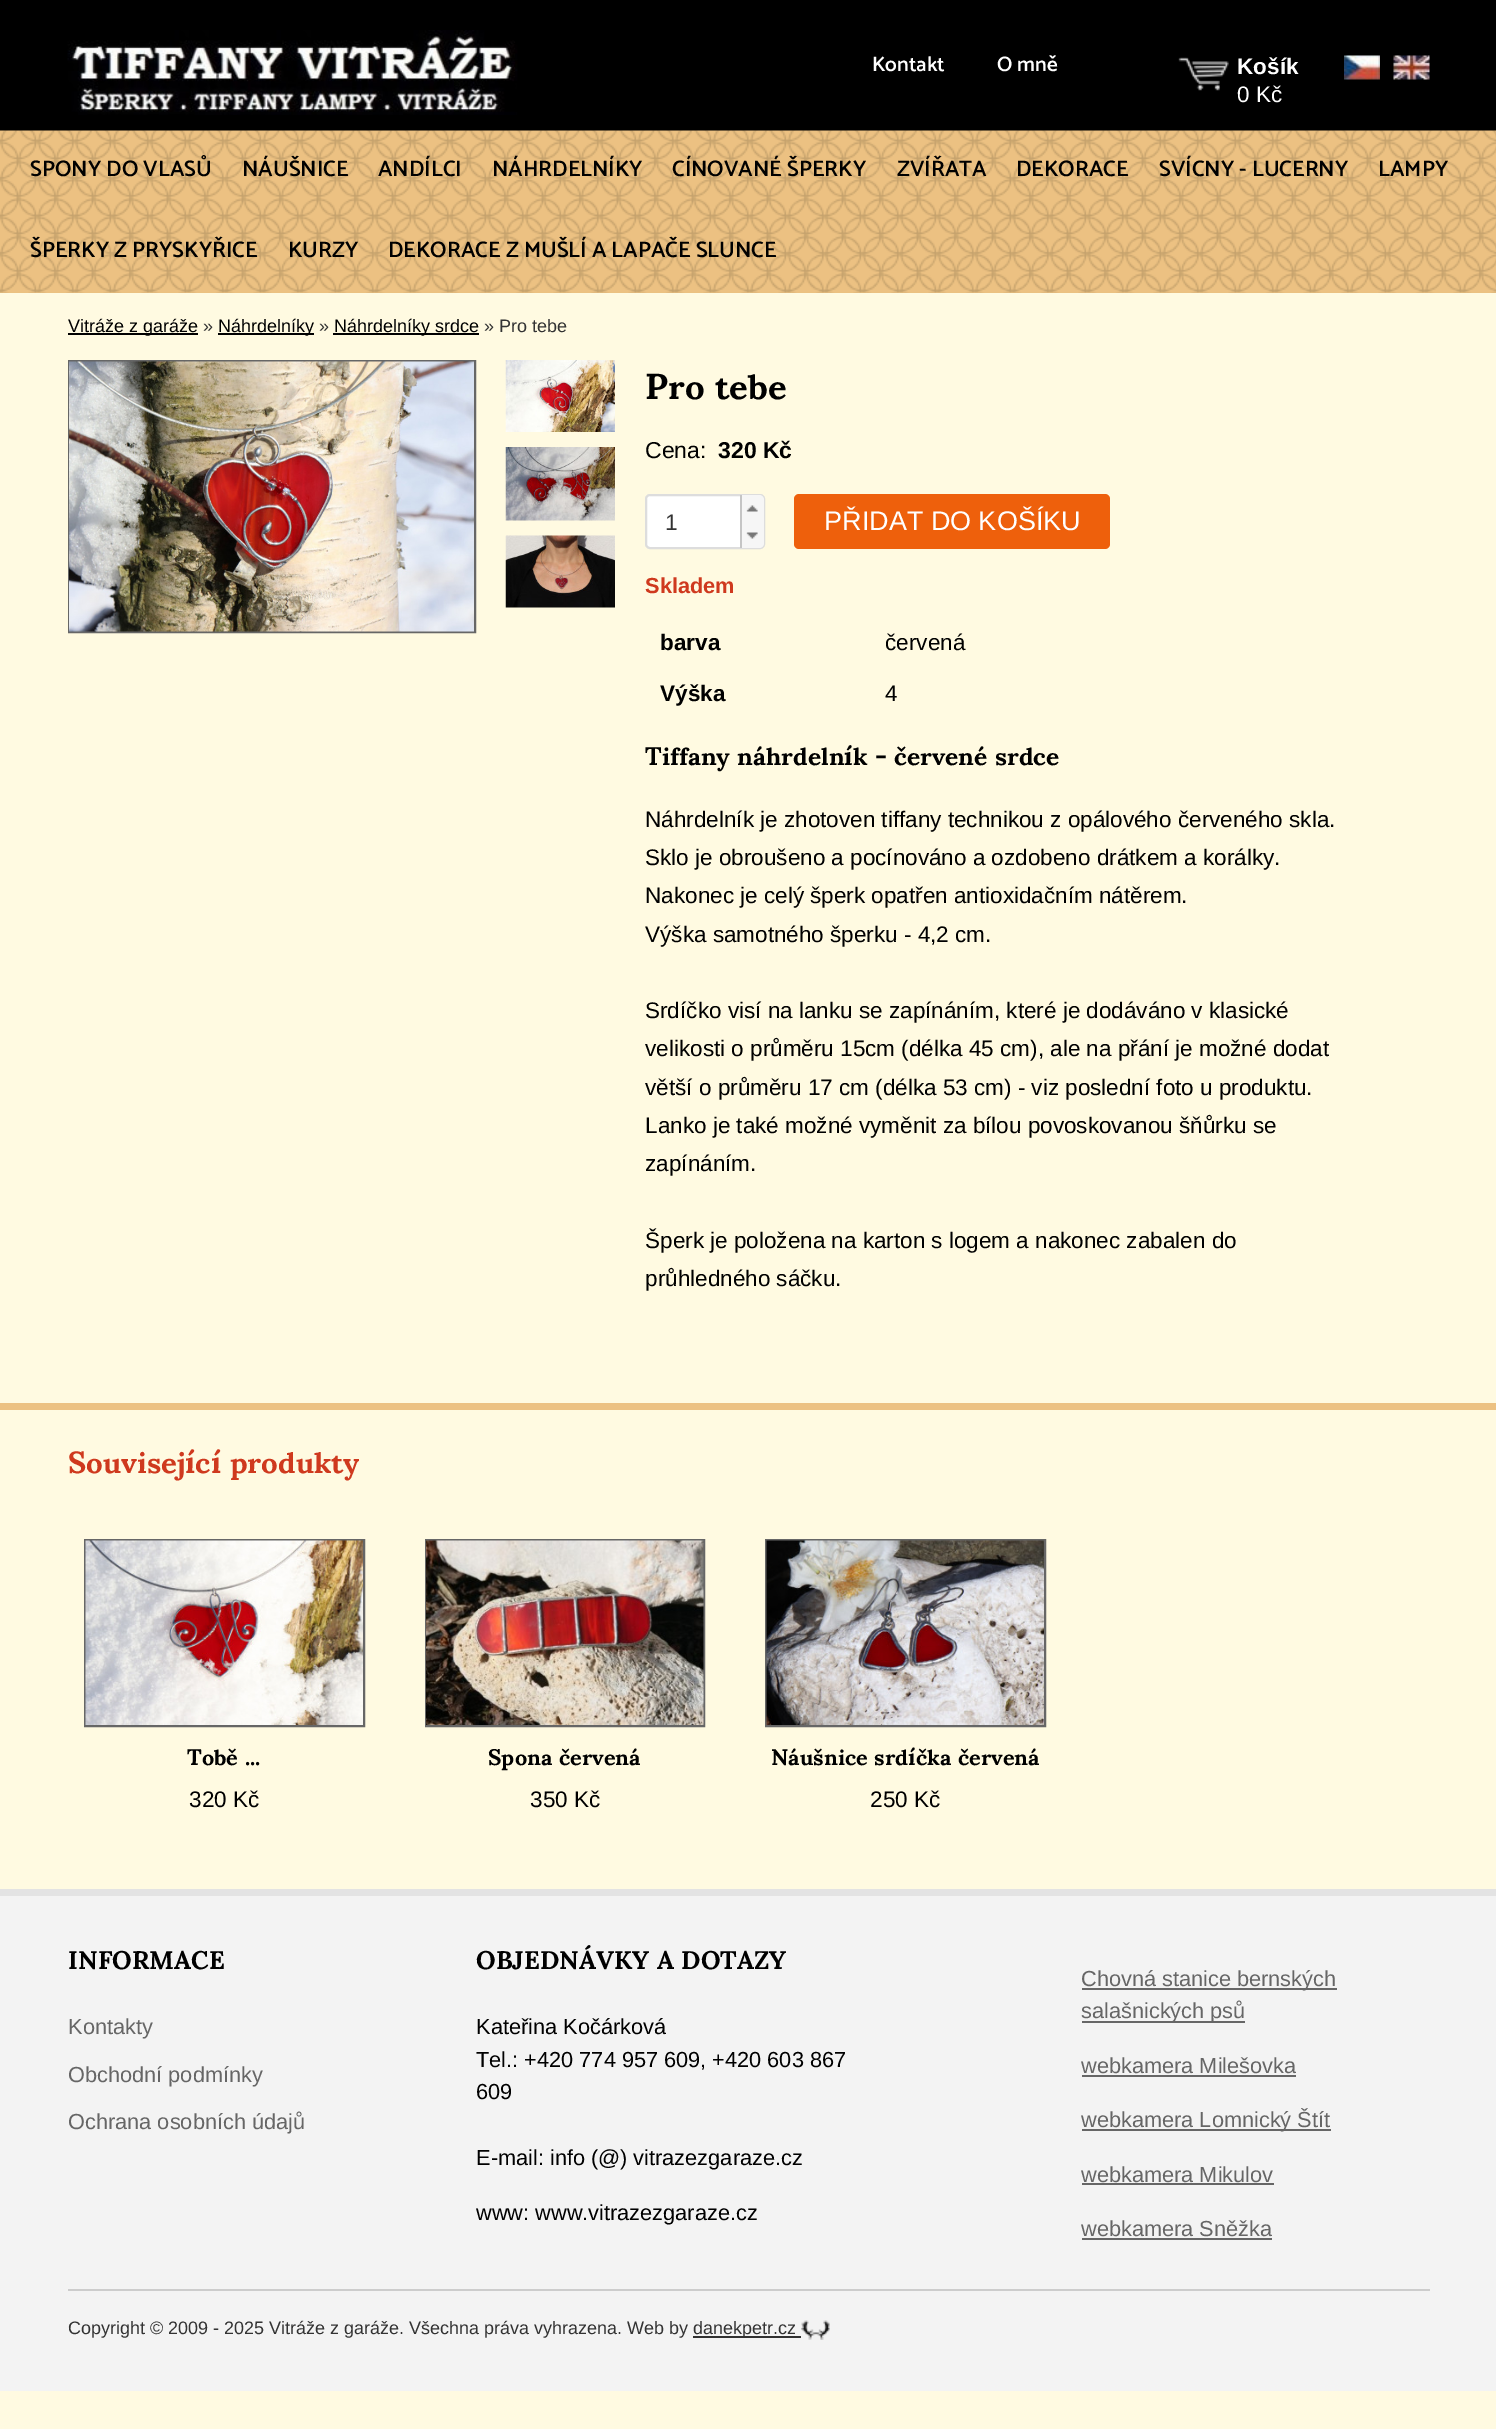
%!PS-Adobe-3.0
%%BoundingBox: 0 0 1496 2429
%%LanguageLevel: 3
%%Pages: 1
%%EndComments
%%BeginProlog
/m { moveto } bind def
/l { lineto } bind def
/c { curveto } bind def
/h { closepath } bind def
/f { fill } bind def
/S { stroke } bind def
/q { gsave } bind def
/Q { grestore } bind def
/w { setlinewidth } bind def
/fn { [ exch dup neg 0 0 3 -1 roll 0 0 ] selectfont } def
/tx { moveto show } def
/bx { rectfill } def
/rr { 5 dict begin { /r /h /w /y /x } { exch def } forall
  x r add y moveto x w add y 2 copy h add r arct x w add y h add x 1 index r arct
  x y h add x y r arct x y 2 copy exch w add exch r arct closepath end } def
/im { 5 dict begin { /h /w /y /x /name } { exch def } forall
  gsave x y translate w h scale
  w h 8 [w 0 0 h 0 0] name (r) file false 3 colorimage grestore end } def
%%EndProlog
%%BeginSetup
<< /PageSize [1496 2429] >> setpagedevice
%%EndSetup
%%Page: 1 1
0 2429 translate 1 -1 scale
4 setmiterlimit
1 0.98 0.882 setrgbcolor
0 0 1496 2429 bx
0 setgray
0 0 1496 131 bx
(image0.raw) 67 30 451 85 im
/Catamaran-Thin 21 fn
1 setgray
(Kontakt) 872 71 tx
(O mně) 997 71 tx
(image1.raw) 1178 57 51 34 im
/LiberationSans-Bold 22.5 fn
(Košík) 1237 74 tx
/LiberationSans-Regular 22.5 fn
(0 Kč) 1237 102 tx
(image2.raw) 1344 55 36 25 im
(image3.raw) 1393 55 37 25 im
0.925 0.757 0.51 setrgbcolor
0 292 1496 1 bx
(image4.raw) 0 130 1496 163 im
/Catamaran-Thin 22.5 fn
0 setgray
(SPONY DO VLASŮ) 30 176 tx
(NÁUŠNICE) 242 176 tx
(ANDÍLCI) 378 176 tx
(NÁHRDELNÍKY) 492 176 tx
(CÍNOVANÉ ŠPERKY) 672 176 tx
(ZVÍŘATA) 897 176 tx
(DEKORACE) 1016 176 tx
(SVÍCNY - LUCERNY) 1159 176 tx
(LAMPY) 1378 176 tx
(ŠPERKY Z PRYSKYŘICE) 30 257 tx
(KURZY) 288 257 tx
(DEKORACE Z MUŠLÍ A LAPAČE SLUNCE) 388 257 tx
68 333 130 2 bx
/LiberationSans-Regular 18 fn
(Vitráže z garáže) 68 332 tx
0.2 setgray
(») 203 332 tx
0 setgray
218 333 96 2 bx
(Náhrdelníky) 218 332 tx
0.2 setgray
(») 319 332 tx
0 setgray
333 333 146 2 bx
(Náhrdelníky srdce) 334 332 tx
0.2 setgray
(» Pro tebe) 484 332 tx
0.4 setgray
2 w
69 361 406 271 rectstroke
(image5.raw) 69 361 405 271 im
(image6.raw) 505 360 110 72 im
(image7.raw) 505 447 110 74 im
(image8.raw) 505 535 110 73 im
/Sumana-Bold 36 fn
0 setgray
(Pro tebe) 645 399 tx
/LiberationSans-Regular 23 fn
(Cena:) 645 458 tx
/LiberationSans-Bold 23 fn
(320 Kč) 718 458 tx
1 setgray
646 495 118 53 4 rr q f Q
0.867 setgray
S
/LiberationSans-Regular 22.5 fn
0.2 setgray
(1) 665 530 tx
0.965 setgray
740 495 m 759 495 l 762 495 764 497 764 500 c 764 522 l 740 522 l h f
0.773 setgray
740 495 2 27 bx
(image9.raw) 746 505 12 7 im
0.965 setgray
740 522 m 764 522 l 764 543 l 764 546 762 548 759 548 c 740 548 l h f
0.773 setgray
740 522 2 26 bx
(image10.raw) 746 532 12 7 im
0.933 0.376 0.047 setrgbcolor
794 494 316 55 5 rr f
/LiberationSans-Regular 27 fn
1 setgray
(PŘIDAT DO KOŠÍKU) 824 530 tx
/LiberationSans-Bold 21.75 fn
0.812 0.224 0.118 setrgbcolor
(Skladem) 645 593 tx
/LiberationSans-Bold 22.5 fn
0 setgray
(barva) 660 650 tx
/LiberationSans-Regular 22.5 fn
(červená) 885 650 tx
/LiberationSans-Bold 22.5 fn
(Výška) 660 701 tx
/LiberationSans-Regular 22.5 fn
(4) 885 701 tx
/Sumana-Bold 25.5 fn
(Tiffany náhrdelník - červené srdce) 645 765 tx
/LiberationSans-Regular 22.5 fn
(Náhrdelník je zhotoven tiffany technikou z opálového červeného skla.) 645 827 tx
(Sklo je obroušeno a pocínováno a ozdobeno drátkem a korálky.) 645 865 tx
(Nakonec je celý šperk opatřen antioxidačním nátěrem.) 645 903 tx
(Výška samotného šperku - 4,2 cm.) 645 942 tx
(Srdíčko visí na lanku se zapínáním, které je dodáváno v klasické) 645 1018 tx
(velikosti o průměru 15cm \(délka 45 cm\), ale na přání je možné dodat) 645 1056 tx
(větší o průměru 17 cm \(délka 53 cm\) - viz poslední foto u produktu.) 645 1095 tx
(Lanko je také možné vyměnit za bílou povoskovanou šňůrku se) 645 1133 tx
(zapínáním.) 645 1171 tx
(Šperk je položena na karton s logem a nakonec zabalen do) 645 1248 tx
(průhledného sáčku.) 645 1286 tx
0.925 0.757 0.51 setrgbcolor
0 1403 1496 7 bx
/Sumana-Bold 30.5 fn
0.812 0.224 0.118 setrgbcolor
(Související produkty) 68 1473 tx
0.4 setgray
85 1540 279 186 rectstroke
(image11.raw) 85 1540 278 185 im
/Sumana-Bold 22.5 fn
0 setgray
(Tobě ...) 187 1765 tx
/LiberationSans-Regular 22.5 fn
(320 Kč) 189 1807 tx
0.4 setgray
426 1540 278 186 rectstroke
(image12.raw) 426 1540 278 185 im
/Sumana-Bold 22.5 fn
0 setgray
(Spona červená) 488 1765 tx
/LiberationSans-Regular 22.5 fn
(350 Kč) 530 1807 tx
0.4 setgray
766 1540 279 186 rectstroke
(image13.raw) 766 1540 278 185 im
/Sumana-Bold 22.5 fn
0 setgray
(Náušnice srdíčka červená) 771 1765 tx
/LiberationSans-Regular 22.5 fn
(250 Kč) 870 1807 tx
0.953 setgray
0 1896 1496 495 bx
0.89 setgray
0 1889 1496 7 bx
/Sumana-Bold 25.5 fn
0 setgray
(INFORMACE) 68 1969 tx
/LiberationSans-Regular 21.75 fn
0.4 setgray
(Kontakty) 68 2034 tx
(Obchodní podmínky) 68 2082 tx
(Ochrana osobních údajů) 68 2129 tx
/Sumana-Bold 25.5 fn
0 setgray
(OBJEDNÁVKY A DOTAZY) 476 1969 tx
/LiberationSans-Regular 21.75 fn
(Kateřina Kočárková) 476 2034 tx
(Tel.: +420 774 957 609, +420 603 867) 476 2067 tx
(609) 476 2099 tx
(E-mail: info \(@\) vitrazezgaraze.cz) 476 2165 tx
(www: www.vitrazezgaraze.cz) 476 2220 tx
0.4 setgray
1082 1988 255 2 bx
(Chovná stanice bernských) 1081 1986 tx
1082 2021 163 2 bx
(salašnických psů) 1081 2018 tx
(webkamera Milešovka) 1081 2073 tx
1082 2075 214 2 bx
1082 2129 249 2 bx
(webkamera Lomnický Štít) 1081 2127 tx
(webkamera Mikulov) 1081 2182 tx
1082 2183 192 2 bx
(webkamera Sněžka) 1081 2236 tx
1082 2238 190 2 bx
0.8 setgray
68 2289 1362 2 bx
/LiberationSans-Regular 18 fn
0.2 setgray
(Copyright © 2009 - 2025 Vitráže z garáže. Všechna práva vyhrazena. Web by) 68 2334 tx
0.192 setgray
693 2336 108 2 bx
0.2 setgray
(danekpetr.cz) 693 2334 tx
(image14.raw) 801 2320 29 20 im
showpage
%%EOF
